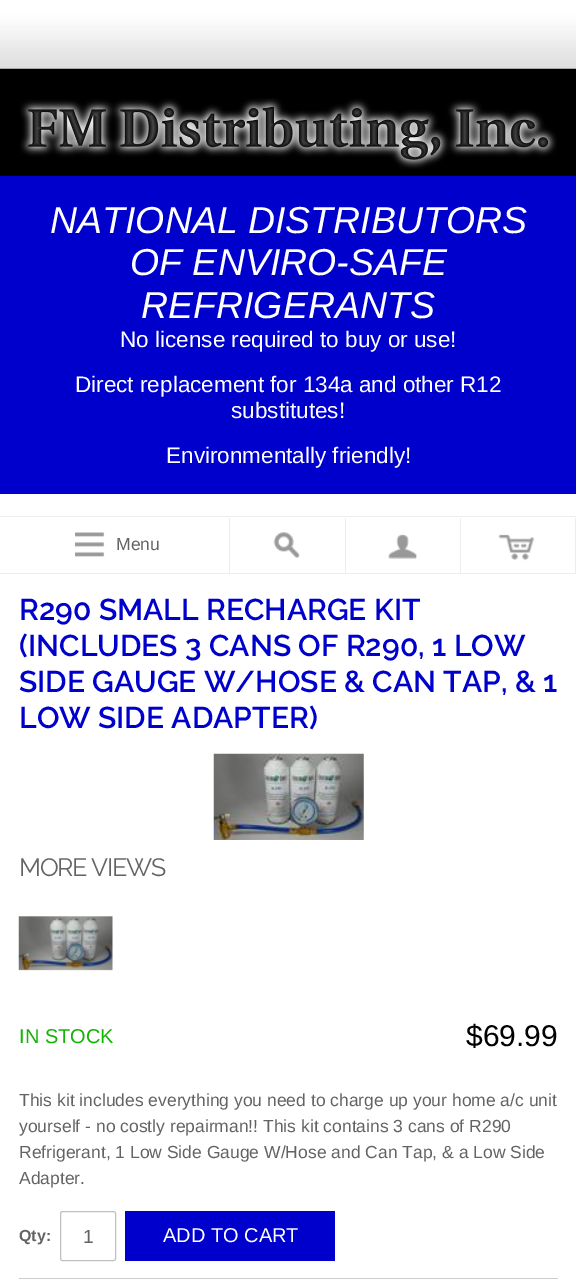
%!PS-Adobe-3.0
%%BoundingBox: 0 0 576 1286
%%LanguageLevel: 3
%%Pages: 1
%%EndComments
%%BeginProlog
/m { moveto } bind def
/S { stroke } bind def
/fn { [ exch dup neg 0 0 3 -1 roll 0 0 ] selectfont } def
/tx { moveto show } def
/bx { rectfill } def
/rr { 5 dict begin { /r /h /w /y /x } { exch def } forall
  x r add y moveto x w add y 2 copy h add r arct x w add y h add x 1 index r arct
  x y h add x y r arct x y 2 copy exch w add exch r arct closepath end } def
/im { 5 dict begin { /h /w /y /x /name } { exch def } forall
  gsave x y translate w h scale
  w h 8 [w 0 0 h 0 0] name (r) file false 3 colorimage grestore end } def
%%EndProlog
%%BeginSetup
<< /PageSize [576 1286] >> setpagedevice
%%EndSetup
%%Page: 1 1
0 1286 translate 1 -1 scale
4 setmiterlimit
1 setgray
0 0 576 1286 bx
0 setgray
0 68 576 108 bx
(image0.raw) 0 0 576 69 im
(image1.raw) 20 98 537 71 im
0 0 0.8 setrgbcolor
0 176 576 318 bx
/LiberationSans-Italic 37.5 fn
1 setgray
(NATIONAL DISTRIBUTORS) 50 233 tx
(OF ENVIRO-SAFE) 130 275 tx
(REFRIGERANTS) 141 318 tx
/LiberationSans-Regular 22.5 fn
(No license required to buy or use!) 120 347 tx
(Direct replacement for 134a and other R12) 75 392 tx
(substitutes!) 231 418 tx
(Environmentally friendly!) 166 463 tx
0.929 setgray
0 516 576 1 bx
0 573 576 1 bx
229 518 1 55 bx
(image2.raw) 75 532 30 25 im
/LiberationSans-Regular 17.5 fn
0.388 setgray
(Menu) 116 550 tx
0.929 setgray
345 518 1 55 bx
(image3.raw) 273 532 27 26 im
460 518 1 55 bx
(image4.raw) 388 534 29 25 im
575 518 1 55 bx
(image5.raw) 498 534 36 27 im
/Raleway-SemiBold 30 fn
0 0 0.8 setrgbcolor
(R290 SMALL RECHARGE KIT) 19 620 tx
(\(INCLUDES 3 CANS OF R290, 1 LOW) 19 656 tx
(SIDE GAUGE W/HOSE & CAN TAP, & 1) 19 692 tx
(LOW SIDE ADAPTER\)) 19 728 tx
(image6.raw) 213 753 151 87 im
/Raleway-Regular 25 fn
0.388 setgray
19 876 m -1.25 0 (MORE VIEWS) ashow
(image7.raw) 18 916 95 55 im
/LiberationSans-Regular 20 fn
0.067 0.706 0 setrgbcolor
(IN STOCK) 19 1043 tx
/LiberationSans-Regular 30 fn
0 setgray
($69.99) 466 1046 tx
/LiberationSans-Regular 17.5 fn
0.388 setgray
(This kit includes everything you need to charge up your home a/c unit) 19 1106 tx
(yourself - no costly repairman!! This kit contains 3 cans of R290) 19 1132 tx
(Refrigerant, 1 Low Side Gauge W/Hose and Can Tap, & a Low Side) 19 1158 tx
(Adapter.) 19 1184 tx
0.8 setgray
19 1278 539 1 bx
/LiberationSans-Bold 16 fn
0.388 setgray
(Qty:) 19 1241 tx
0.753 setgray
60.5 1211.5 55 49 2 rr S
/LiberationSans-Regular 19 fn
0.388 setgray
(1) 83 1243 tx
0 0 0.8 setrgbcolor
125 1211 210 50 bx
/LiberationSans-Regular 20 fn
1 setgray
(ADD TO CART) 163 1242 tx
showpage
%%EOF
